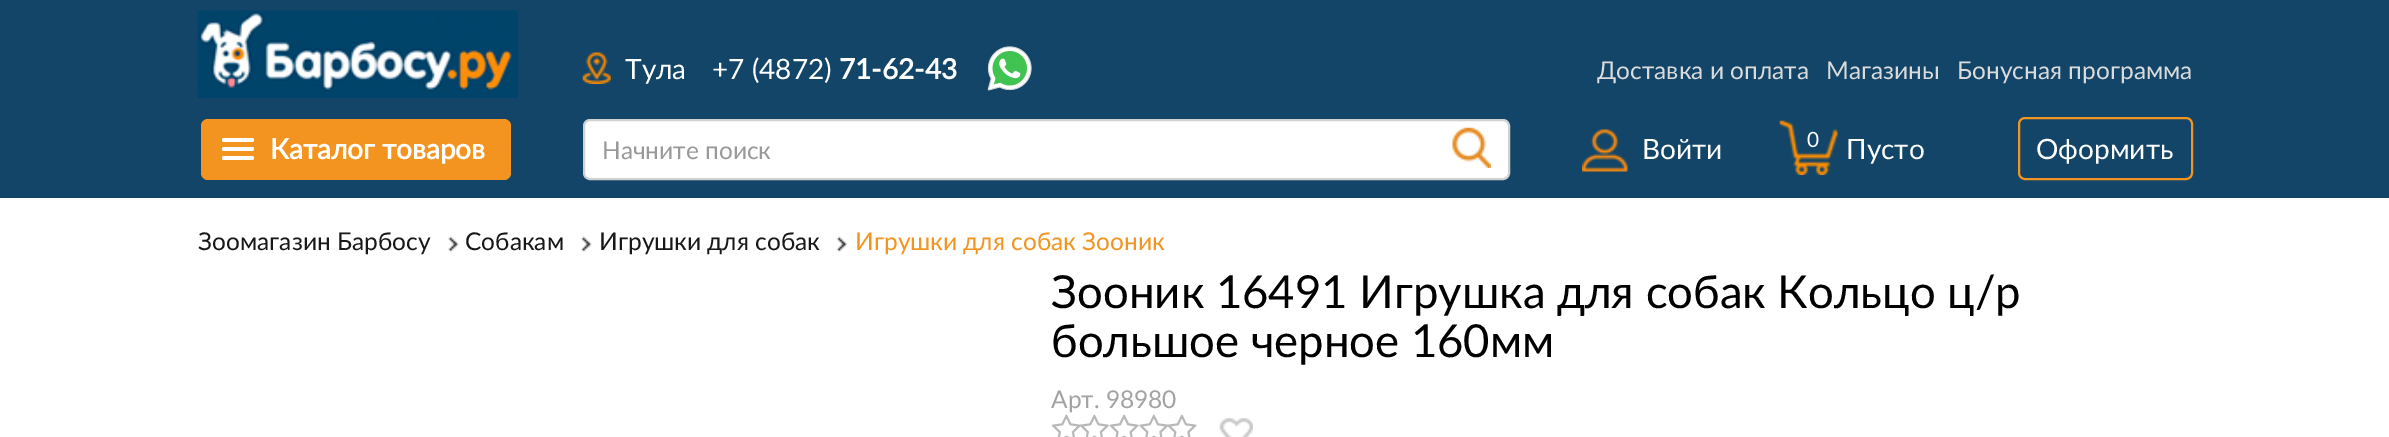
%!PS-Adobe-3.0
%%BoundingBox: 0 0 2389 437
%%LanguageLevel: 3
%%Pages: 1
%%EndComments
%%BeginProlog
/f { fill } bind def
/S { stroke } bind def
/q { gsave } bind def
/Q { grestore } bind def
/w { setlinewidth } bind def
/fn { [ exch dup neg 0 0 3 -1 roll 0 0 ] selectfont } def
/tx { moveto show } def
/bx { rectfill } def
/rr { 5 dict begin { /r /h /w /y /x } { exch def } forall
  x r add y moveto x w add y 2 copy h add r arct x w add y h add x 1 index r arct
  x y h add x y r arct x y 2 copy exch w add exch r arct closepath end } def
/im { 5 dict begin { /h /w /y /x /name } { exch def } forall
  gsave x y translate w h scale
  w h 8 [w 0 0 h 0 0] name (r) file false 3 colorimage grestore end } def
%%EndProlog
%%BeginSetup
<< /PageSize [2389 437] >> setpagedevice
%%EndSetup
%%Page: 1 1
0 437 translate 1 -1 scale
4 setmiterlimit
1 setgray
0 0 2389 437 bx
0.071 0.271 0.408 setrgbcolor
0 0 2389 198 bx
(image0.raw) 197 10 322 88 im
(image1.raw) 582 52 29 32 im
/Lato-Regular 28 fn
1 setgray
(Тула) 625 79 tx
(+7 \(4872\)) 712 79 tx
/Lato-Bold 28 fn
(71-62-43) 839 79 tx
(image2.raw) 987 46 45 45 im
/Lato-Regular 24.5 fn
0.859 setgray
(Доставка и оплата) 1597 79 tx
(Магазины) 1826 79 tx
(Бонусная программа) 1957 79 tx
0.949 0.58 0.122 setrgbcolor
201 119 310 61 7 rr f
1 setgray
222 138 32 4 2 rr f
222 147 32 4 2 rr f
222 156 32 4 2 rr f
/Lato-Bold 28 fn
(Каталог товаров) 270 159 tx
584 120 925 59 6 rr q f Q
0.82 setgray
2 w
S
/Lato-Regular 24.5 fn
0.6 setgray
(Начните поиск) 602 159 tx
(image3.raw) 1452 127 39 41 im
(image4.raw) 1582 129 46 43 im
/Lato-Regular 28 fn
1 setgray
(Войти) 1642 159 tx
/Lato-Regular 21 fn
(0) 1807 147 tx
(image5.raw) 1779 120 59 55 im
/Lato-Regular 28 fn
(Пусто) 1846 159 tx
0.949 0.58 0.122 setrgbcolor
2019 118 173 61 6 rr S
1 setgray
(Оформить) 2036 159 tx
/Lato-Regular 24.5 fn
0.094 setgray
(Зоомагазин Барбосу) 198 250 tx
(image6.raw) 448 236 11 16 im
(Собакам) 465 250 tx
(image6.raw) 581 236 11 16 im
(Игрушки для собак) 599 250 tx
(image7.raw) 836 236 11 16 im
0.949 0.58 0.122 setrgbcolor
(Игрушки для собак Зооник) 855 250 tx
/Lato-Regular 45.5 fn
0 setgray
(Зооник 16491 Игрушка для собак Кольцо ц/р) 1051 308 tx
(большое черное 160мм) 1051 357 tx
/Lato-Regular 24.5 fn
0.639 setgray
(Арт. 98980) 1051 408 tx
(image8.raw) 1051 414 30 23 im
(image9.raw) 1080 414 29 23 im
(image10.raw) 1109 414 30 23 im
(image11.raw) 1139 414 30 23 im
(image12.raw) 1167 414 30 23 im
(image13.raw) 1219 418 34 19 im
showpage
%%EOF
